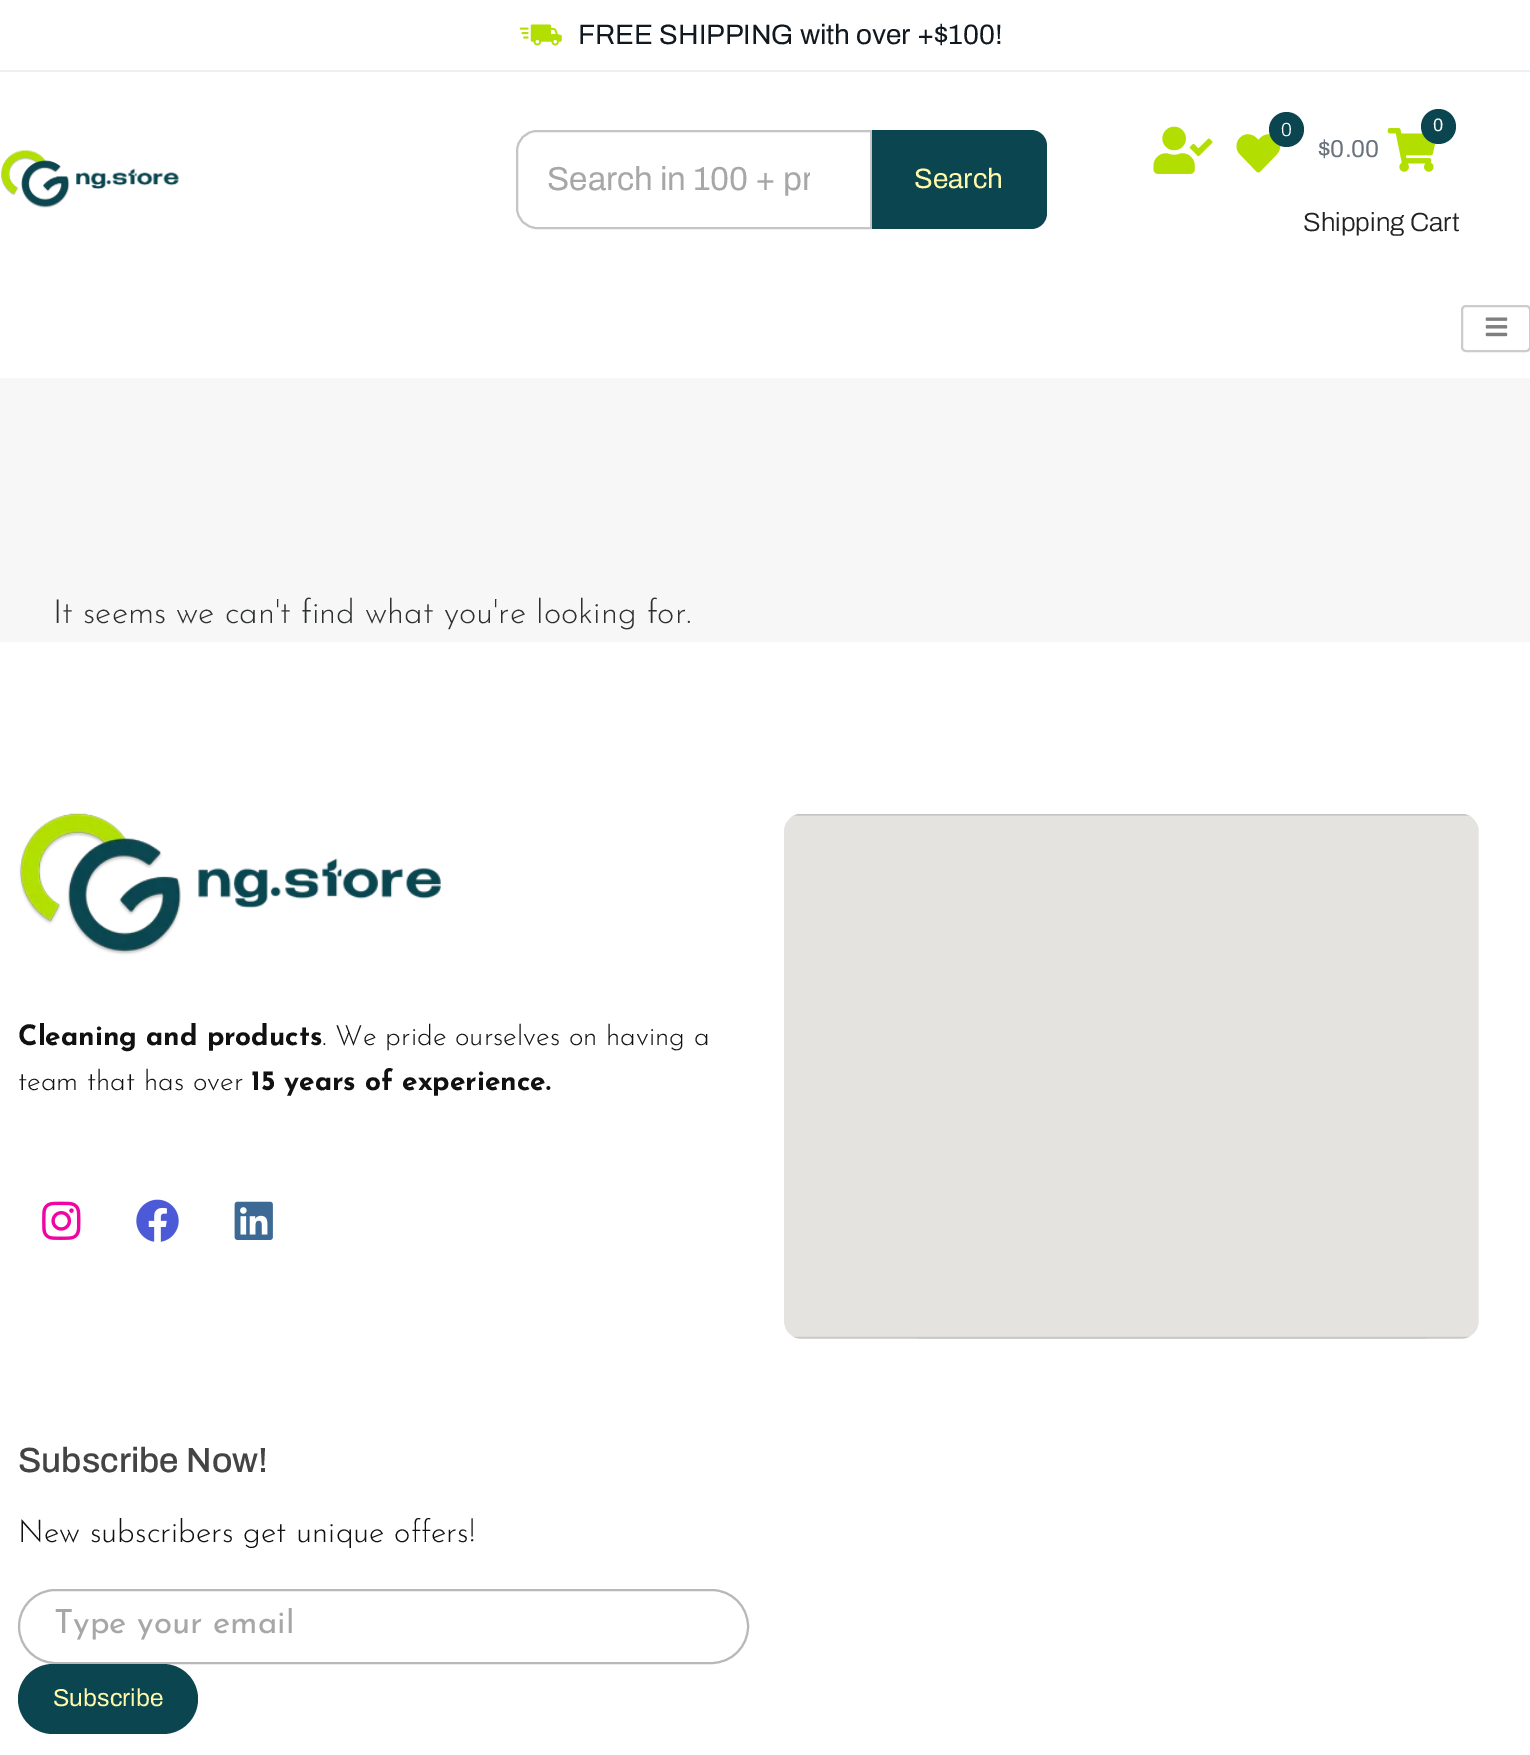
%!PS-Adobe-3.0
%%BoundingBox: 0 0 1530 1755
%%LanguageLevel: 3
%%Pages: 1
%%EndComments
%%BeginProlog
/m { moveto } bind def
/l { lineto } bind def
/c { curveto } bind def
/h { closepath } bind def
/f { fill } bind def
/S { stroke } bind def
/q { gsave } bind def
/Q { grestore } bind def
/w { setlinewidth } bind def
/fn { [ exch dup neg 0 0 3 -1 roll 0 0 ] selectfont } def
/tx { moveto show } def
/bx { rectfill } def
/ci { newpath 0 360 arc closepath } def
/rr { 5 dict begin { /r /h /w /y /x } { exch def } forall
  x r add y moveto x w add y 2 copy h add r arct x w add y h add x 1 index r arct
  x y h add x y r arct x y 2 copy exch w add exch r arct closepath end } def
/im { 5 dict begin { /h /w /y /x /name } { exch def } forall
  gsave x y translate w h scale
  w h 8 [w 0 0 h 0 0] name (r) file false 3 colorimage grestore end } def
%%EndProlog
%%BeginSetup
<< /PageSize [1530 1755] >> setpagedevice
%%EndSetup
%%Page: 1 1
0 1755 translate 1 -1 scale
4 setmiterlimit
0.969 setgray
0 0 1530 1755 bx
1 setgray
0 0 m 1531 0 l 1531 68 l 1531 69 1530 70 1529 70 c 0 70 l h f
(image0.raw) 519 24 43 22 im
/Archivo-Regular 28 fn
0.063 0.094 0.125 setrgbcolor
(FREE SHIPPING with over +$100!) 578 44 tx
1 setgray
0 72 1530 306 bx
0.8 setgray
2 w
1462 306 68 45 4 rr S
(image1.raw) 1485 317 23 20 im
0.925 0.941 0.953 setrgbcolor
0 70 1530 2 bx
(image2.raw) 1 150 178 58 im
0.773 setgray
537 131 m 871 131 l 871 228 l 537 228 l 526 228 517 219 517 208 c 517 151 l 517 140 526 131 537 131 c h S
q
548 159 262 37 rectclip
/Archivo-Regular 33.25 fn
0.655 setgray
(Search in 100 + pr) 547 190 tx
Q
0.043 0.275 0.314 setrgbcolor
872 130 m 1031 130 l 1040 130 1047 137 1047 146 c 1047 213 l 1047 222 1040 229 1031 229 c 872 229 l h f
0.996 0.976 0.671 setrgbcolor
(Search) 914 188 tx
(image3.raw) 1153 126 60 48 im
(image4.raw) 1236 134 45 39 im
0.043 0.275 0.314 setrgbcolor
1286.5 129.5 17.5 ci f
/Archivo-Light 19 fn
1 setgray
(0) 1281 136 tx
(image5.raw) 1387 128 49 44 im
0.043 0.275 0.314 setrgbcolor
1438.5 126.5 17.5 ci f
/Archivo-Regular 18 fn
1 setgray
(0) 1433 131 tx
/Archivo-Regular 24.5 fn
0.412 0.447 0.49 setrgbcolor
($0.00) 1318 157 tx
/Archivo-Light 26.25 fn
0.133 setgray
(Shipping Cart) 1303 231 tx
/JosefinSans-Light 33.25 fn
0.18 0.188 0.192 setrgbcolor
(It seems we can't find what you're looking for.) 53 623 tx
1 setgray
0 642 1530 1113 bx
(image6.raw) 19 813 422 142 im
/JosefinSans-Bold 28 fn
0.067 setgray
(Cleaning and products) 18 1045 tx
/JosefinSans-Light 28 fn
(. We pride ourselves on having a) 322 1045 tx
(team that has over) 18 1090 tx
/JosefinSans-Bold 28 fn
(15 years of experience.) 251 1090 tx
(image7.raw) 42 1201 39 39 im
(image8.raw) 136 1199 43 43 im
(image9.raw) 234 1201 39 39 im
(image10.raw) 784 814 695 525 im
/Archivo-Medium 35 fn
0.267 setgray
(Subscribe Now!) 18 1472 tx
/JosefinSans-Light 31.5 fn
0.067 setgray
(New subscribers get unique offers!) 18 1542 tx
0.722 setgray
19 1590 729 73 36.5 rr S
q
54 1608 658 34 rectclip
/JosefinSans-Regular 33.25 fn
0.655 setgray
(Type your email) 54 1633 tx
Q
0.043 0.275 0.314 setrgbcolor
18 1664 180 70 35 rr f
/Archivo-Regular 24.5 fn
0.996 0.976 0.671 setrgbcolor
(Subscribe) 53 1706 tx
showpage
%%EOF
